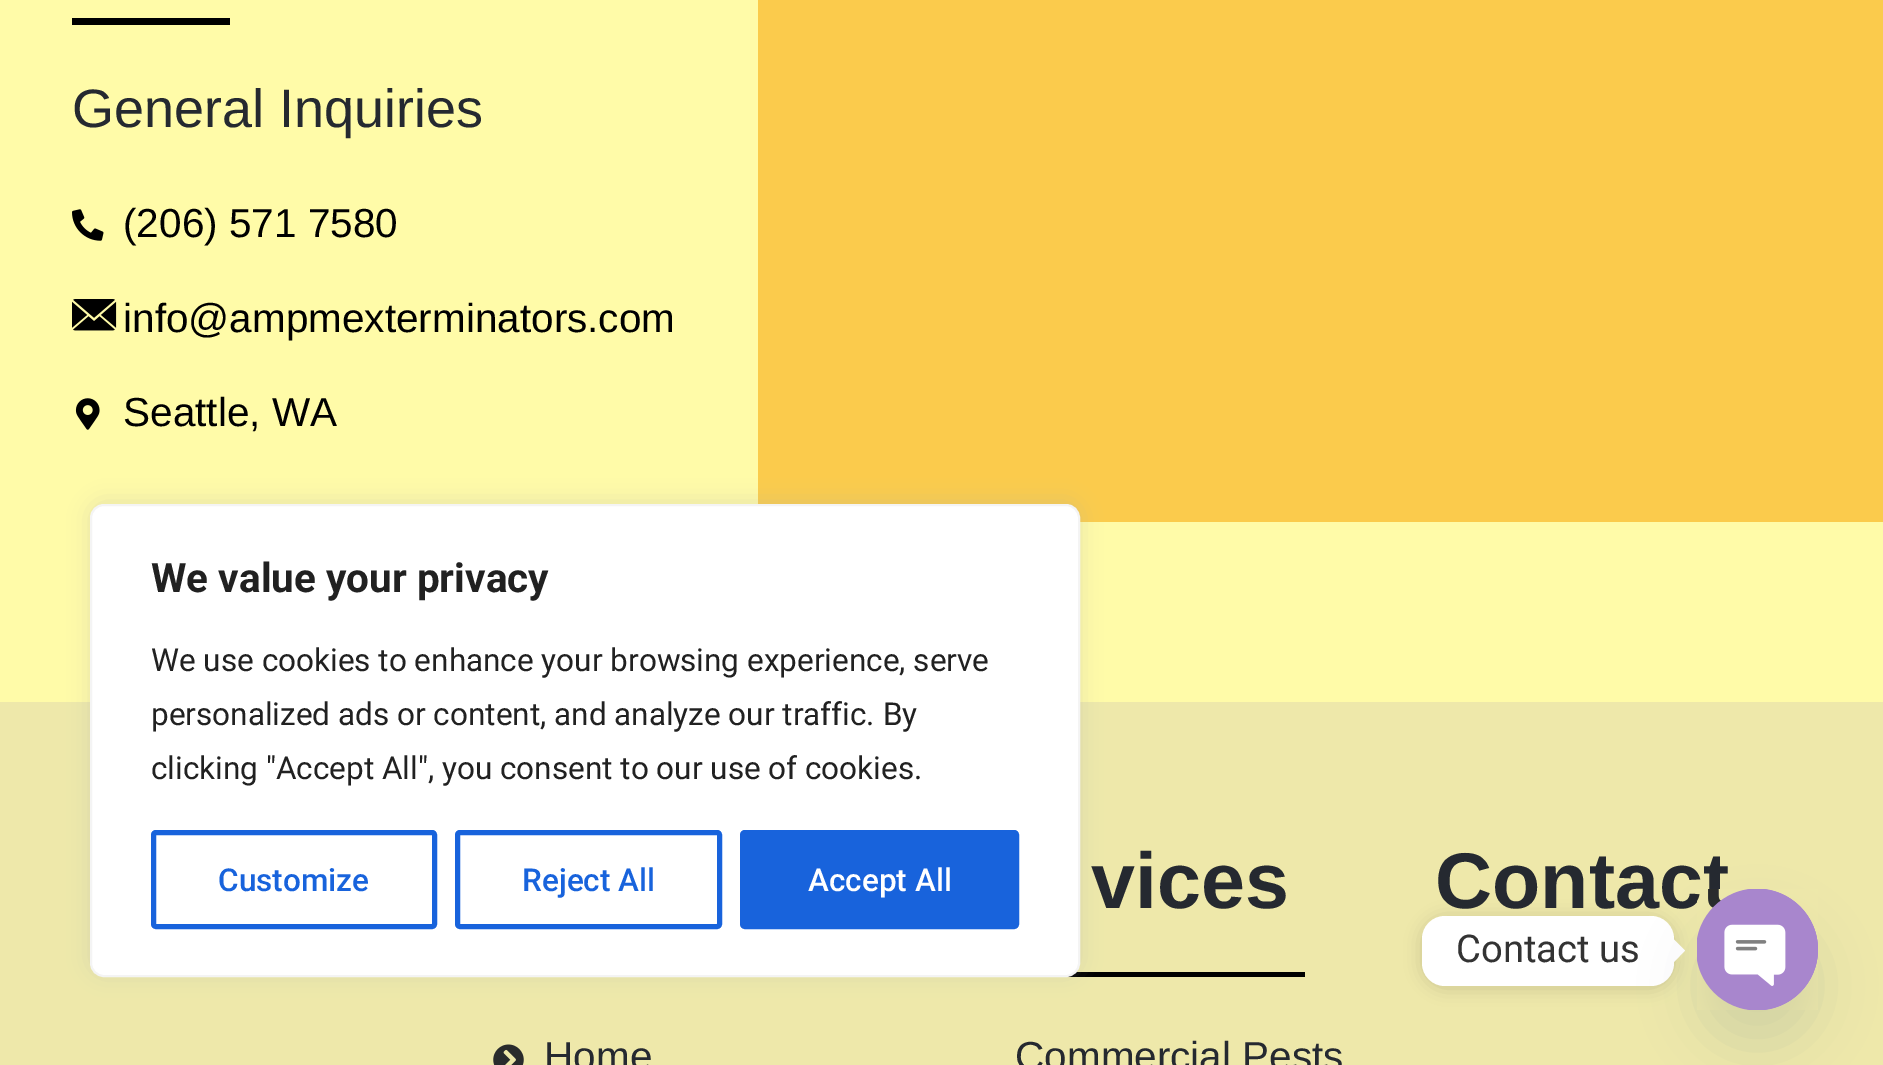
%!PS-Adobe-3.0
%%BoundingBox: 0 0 1883 1065
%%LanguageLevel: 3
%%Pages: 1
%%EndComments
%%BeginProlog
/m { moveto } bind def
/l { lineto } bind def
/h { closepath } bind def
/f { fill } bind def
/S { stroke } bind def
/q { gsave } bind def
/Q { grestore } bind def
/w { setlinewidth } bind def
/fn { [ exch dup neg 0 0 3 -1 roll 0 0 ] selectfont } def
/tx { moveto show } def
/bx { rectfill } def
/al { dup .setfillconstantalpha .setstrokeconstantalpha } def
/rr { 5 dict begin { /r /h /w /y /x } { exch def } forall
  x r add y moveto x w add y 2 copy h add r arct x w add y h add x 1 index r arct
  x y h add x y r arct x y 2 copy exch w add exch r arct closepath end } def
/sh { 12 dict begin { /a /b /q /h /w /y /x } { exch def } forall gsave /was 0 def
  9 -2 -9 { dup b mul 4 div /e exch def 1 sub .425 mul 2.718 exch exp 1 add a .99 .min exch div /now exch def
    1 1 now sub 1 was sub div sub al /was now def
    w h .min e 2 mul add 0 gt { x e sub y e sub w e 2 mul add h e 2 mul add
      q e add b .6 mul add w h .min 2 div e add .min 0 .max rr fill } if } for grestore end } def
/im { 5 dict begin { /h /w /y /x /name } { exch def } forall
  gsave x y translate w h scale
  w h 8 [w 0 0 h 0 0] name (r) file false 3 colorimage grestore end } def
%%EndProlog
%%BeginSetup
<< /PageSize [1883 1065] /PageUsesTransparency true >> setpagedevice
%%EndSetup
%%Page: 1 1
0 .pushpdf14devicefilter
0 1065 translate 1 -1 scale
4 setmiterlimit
1 0.984 0.659 setrgbcolor
0 0 1883 1065 bx
0 setgray
72 18 158 7 bx
/LiberationSans-Regular 54 fn
0.145 0.161 0.188 setrgbcolor
(General Inquiries) 72 127 tx
(image0.raw) 72 209 32 32 im
/LiberationSans-Regular 40.5 fn
0 setgray
(\(206\) 571 7580) 123 237 tx
(image1.raw) 72 299 45 32 im
(info@ampmexterminators.com) 123 332 tx
(image2.raw) 75 398 25 32 im
(Seattle, WA) 123 426 tx
0.984 0.796 0.298 setrgbcolor
758 0 1125 522 bx
0.933 0.91 0.667 setrgbcolor
0 702 1883 363 bx
0 setgray
1066 972 239 5 bx
0.675 0.671 0.671 setrgbcolor
90 502 990 472 14 11 0.3 sh
1 setgray
91 505 988 471 13 rr q f Q
0.957 setgray
2 w
S
/Roboto-Bold 40.5 fn
0.129 setgray
(We value your privacy) 151 592 tx
/Roboto-Regular 31.5 fn
(We use cookies to enhance your browsing experience, serve) 151 671 tx
(personalized ads or content, and analyze our traffic. By) 151 725 tx
(clicking "Accept All", you consent to our use of cookies.) 151 779 tx
0.094 0.388 0.863 setrgbcolor
5 w
153.5 832.5 281 94 2.5 rr S
/Roboto-Medium 31.5 fn
(Customize) 218 891 tx
457.5 832.5 262 94 2.5 rr S
(Reject All) 522 891 tx
742.5 832.5 274 94 2.5 rr q f Q
S
1 setgray
(Accept All) 808 891 tx
/LiberationSans-Bold 79 fn
0.145 0.161 0.188 setrgbcolor
(vices) 1091 908 tx
/LiberationSans-Regular 40.5 fn
(Commercial Pests) 1015 1070 tx
/LiberationSans-Bold 79 fn
(Contact) 1435 908 tx
(image3.raw) 493 1044 31 21 im
/LiberationSans-Regular 40.5 fn
(Home) 544 1070 tx
0 setgray
1422 918 252 70 23 8.5 0.15 sh
1 setgray
1422 916 252 70 23 rr f
/Roboto-Regular 38.25 fn
0.2 setgray
(Contact us) 1456 962 tx
1 setgray
1674 962 m 1674 939.5 l 1685 950.5 l h f
0.286 0.408 0.494 setrgbcolor
1697 925 121 121 60.5 27 0.16 sh
(image4.raw) 1697 889 121 121 im
.poppdf14devicefilter showpage
%%EOF
